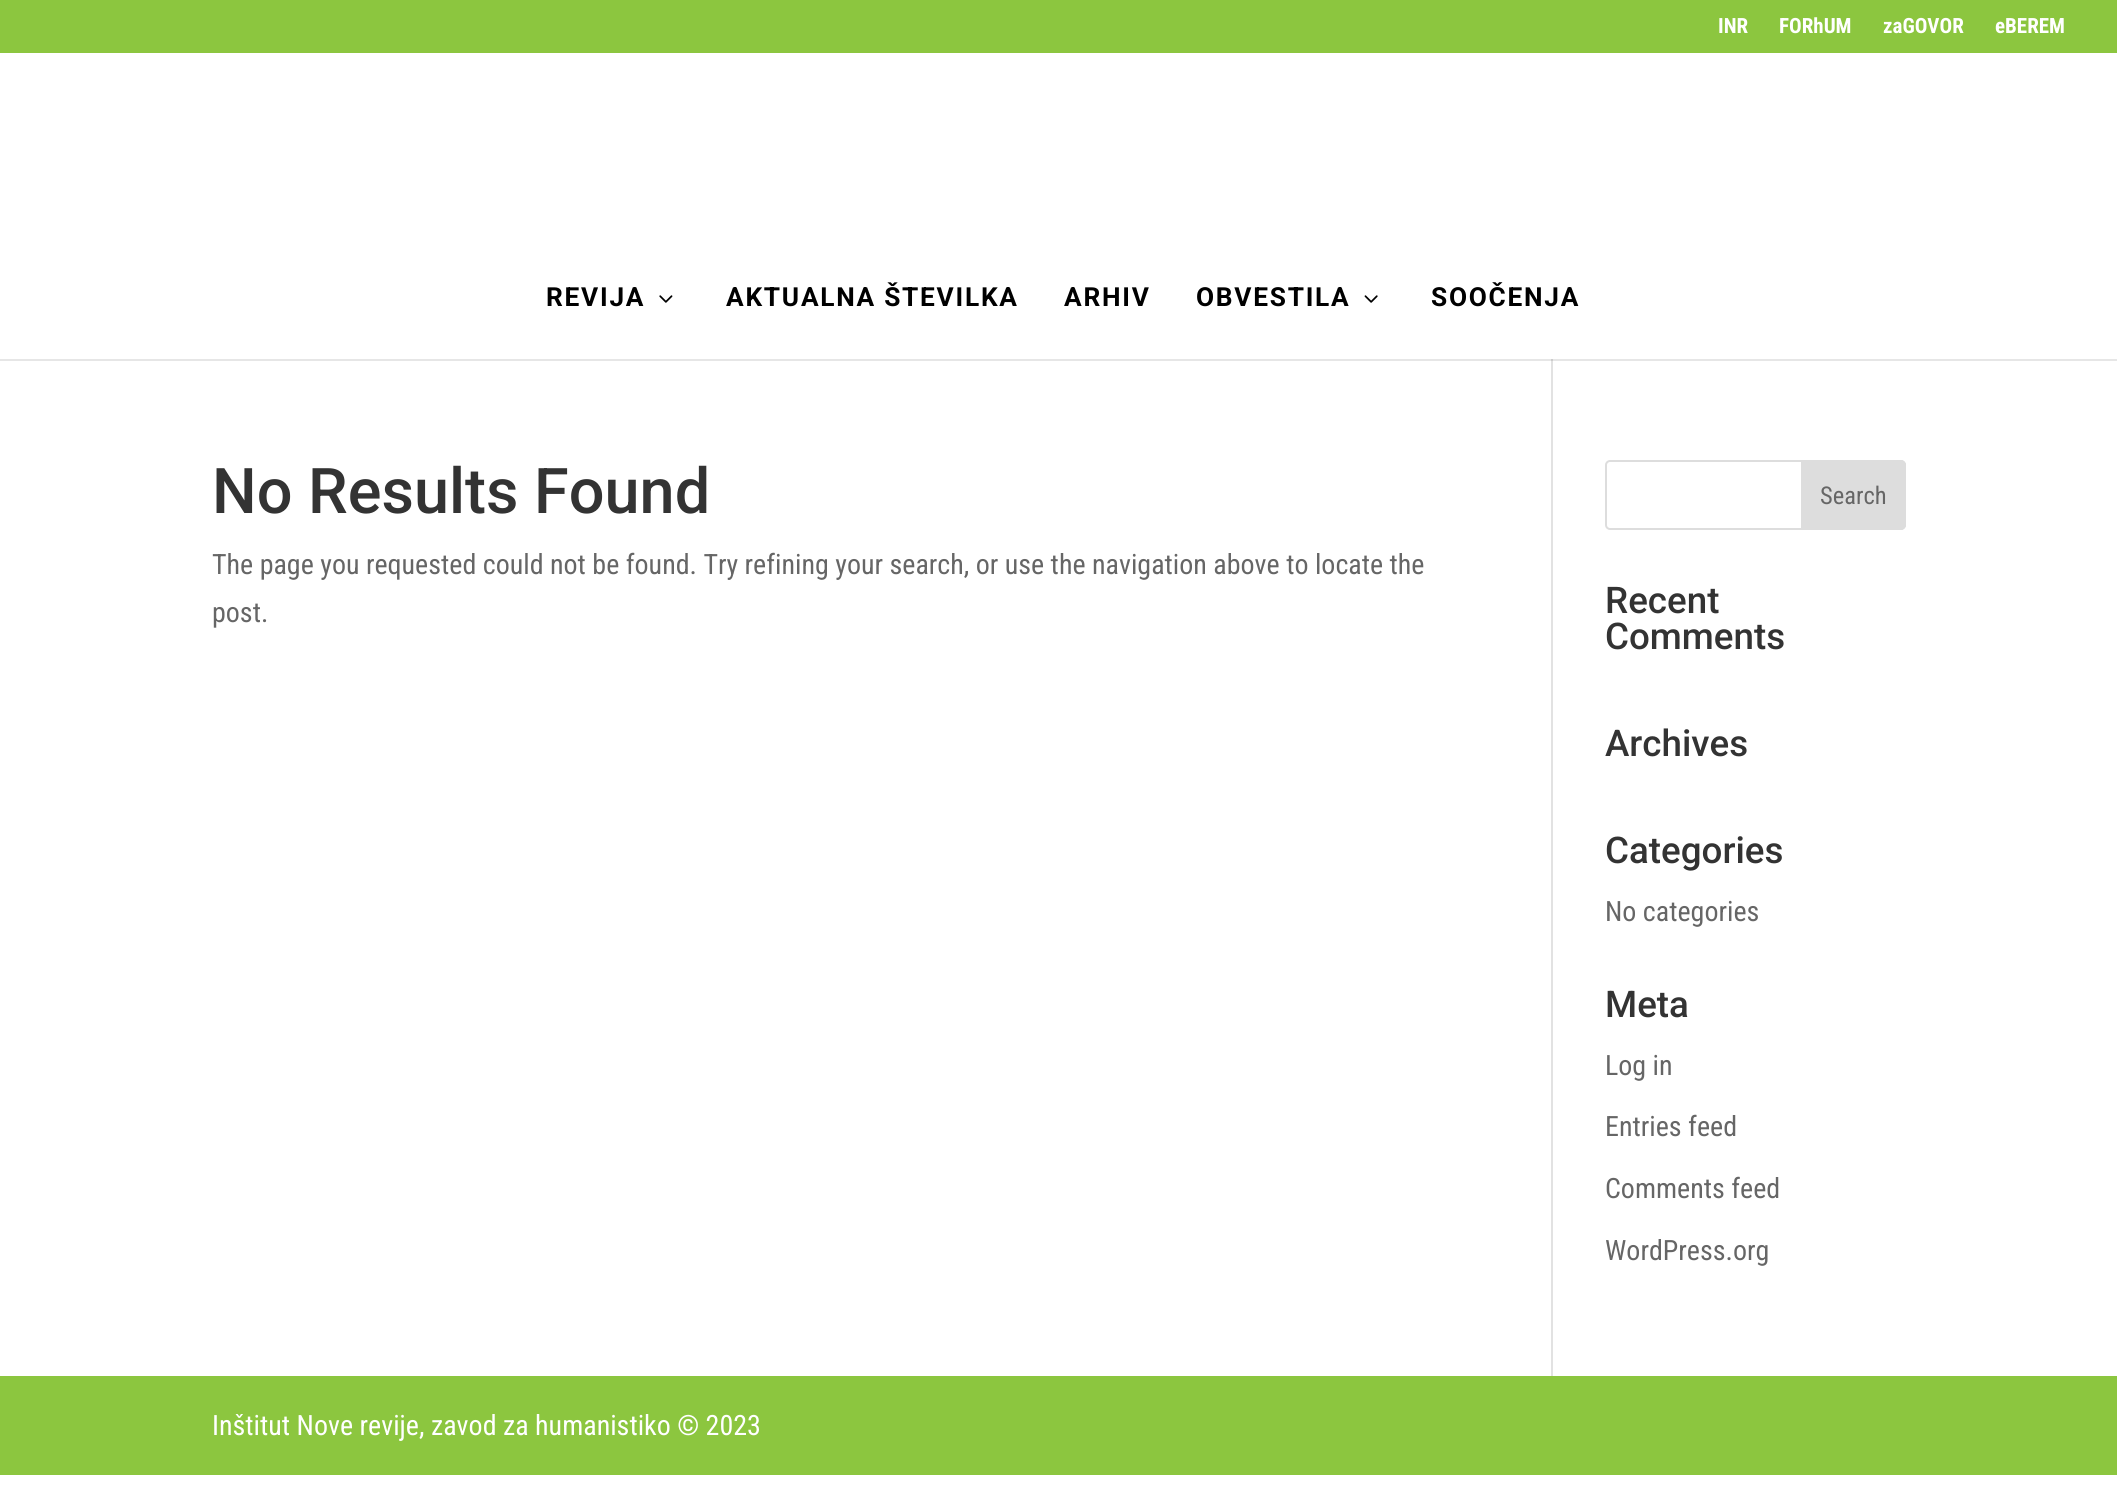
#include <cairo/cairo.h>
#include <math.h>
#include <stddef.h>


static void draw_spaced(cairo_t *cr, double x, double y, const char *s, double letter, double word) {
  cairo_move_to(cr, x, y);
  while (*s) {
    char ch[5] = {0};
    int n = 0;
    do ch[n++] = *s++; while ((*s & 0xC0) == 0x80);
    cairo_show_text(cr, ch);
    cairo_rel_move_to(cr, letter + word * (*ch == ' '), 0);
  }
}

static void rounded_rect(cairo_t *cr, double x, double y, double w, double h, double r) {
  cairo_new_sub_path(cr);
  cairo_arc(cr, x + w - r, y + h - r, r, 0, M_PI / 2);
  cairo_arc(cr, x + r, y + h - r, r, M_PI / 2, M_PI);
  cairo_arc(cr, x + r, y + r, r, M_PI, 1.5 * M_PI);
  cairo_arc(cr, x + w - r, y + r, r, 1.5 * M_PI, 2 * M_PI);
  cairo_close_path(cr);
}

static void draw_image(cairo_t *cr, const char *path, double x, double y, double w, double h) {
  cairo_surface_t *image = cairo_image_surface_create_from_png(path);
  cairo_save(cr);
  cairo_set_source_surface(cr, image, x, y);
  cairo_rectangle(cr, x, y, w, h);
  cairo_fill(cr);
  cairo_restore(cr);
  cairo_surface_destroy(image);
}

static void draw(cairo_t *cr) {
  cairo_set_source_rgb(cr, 1, 1, 1);
  cairo_paint(cr);
  cairo_set_source_rgb(cr, 140 / 255.0, 198 / 255.0, 63 / 255.0);
  cairo_rectangle(cr, 0, 0, 2117, 53);
  cairo_fill(cr);
  cairo_set_source_rgb(cr, 226 / 255.0, 226 / 255.0, 226 / 255.0);
  cairo_rectangle(cr, 1551, 359, 2, 1017);
  cairo_fill(cr);
  cairo_set_source_rgba(cr, 0, 0, 0, 0.1);
  cairo_new_path(cr);
  cairo_move_to(cr, 0, 359);
  cairo_line_to(cr, 0, 361);
  cairo_line_to(cr, 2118, 361);
  cairo_line_to(cr, 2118, 54);
  cairo_line_to(cr, 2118, 359);
  cairo_close_path(cr);
  cairo_fill(cr);
  draw_image(cr, "images/1.png", 659, 295, 14, 8);
  draw_image(cr, "images/2.png", 1364, 295, 14, 8);
  rounded_rect(cr, 1606, 461, 299, 68, 4);
  cairo_set_source_rgb(cr, 221 / 255.0, 221 / 255.0, 221 / 255.0);
  cairo_stroke(cr);
  cairo_new_path(cr);
  cairo_move_to(cr, 1802, 461);
  cairo_line_to(cr, 1901, 461);
  cairo_curve_to(cr, 1903, 461, 1905, 463, 1905, 465);
  cairo_line_to(cr, 1905, 525);
  cairo_curve_to(cr, 1905, 527, 1903, 529, 1901, 529);
  cairo_line_to(cr, 1802, 529);
  cairo_close_path(cr);
  cairo_fill_preserve(cr);
  cairo_stroke(cr);
  cairo_set_source_rgb(cr, 140 / 255.0, 198 / 255.0, 63 / 255.0);
  cairo_rectangle(cr, 0, 1376, 2117, 99);
  cairo_fill(cr);
  cairo_select_font_face(cr, "Roboto Condensed", CAIRO_FONT_SLANT_NORMAL, CAIRO_FONT_WEIGHT_BOLD);
  cairo_set_font_size(cr, 21);
  cairo_set_source_rgb(cr, 1, 1, 1);
  cairo_move_to(cr, 1718, 33);
  cairo_show_text(cr, "INR");
  cairo_move_to(cr, 1779, 33);
  cairo_show_text(cr, "FORhUM");
  cairo_move_to(cr, 1883, 33);
  cairo_show_text(cr, "zaGOVOR");
  cairo_move_to(cr, 1995, 33);
  cairo_show_text(cr, "eBEREM");
  cairo_select_font_face(cr, "Roboto", CAIRO_FONT_SLANT_NORMAL, CAIRO_FONT_WEIGHT_BOLD);
  cairo_set_font_size(cr, 26.25);
  cairo_set_source_rgb(cr, 0, 0, 0);
  draw_spaced(cr, 546, 306, "REVIJA", 1.75, 0);
  draw_spaced(cr, 726, 306, "AKTUALNA ŠTEVILKA", 1.75, 0);
  draw_spaced(cr, 1064, 306, "ARHIV", 1.75, 0);
  draw_spaced(cr, 1196, 306, "OBVESTILA", 1.75, 0);
  draw_spaced(cr, 1431, 306, "SOOČENJA", 1.75, 0);
  cairo_select_font_face(cr, "Roboto Medium", CAIRO_FONT_SLANT_NORMAL, CAIRO_FONT_WEIGHT_NORMAL);
  cairo_set_font_size(cr, 63);
  cairo_set_source_rgb(cr, 51 / 255.0, 51 / 255.0, 51 / 255.0);
  cairo_move_to(cr, 212, 513);
  cairo_show_text(cr, "No Results Found");
  cairo_select_font_face(cr, "Roboto Condensed", CAIRO_FONT_SLANT_NORMAL, CAIRO_FONT_WEIGHT_NORMAL);
  cairo_set_font_size(cr, 28);
  cairo_set_source_rgb(cr, 102 / 255.0, 102 / 255.0, 102 / 255.0);
  cairo_move_to(cr, 212, 574);
  cairo_show_text(cr, "The page you requested could not be found. Try refining your search, or use the navigation above to locate the");
  cairo_move_to(cr, 212, 622);
  cairo_show_text(cr, "post.");
  cairo_set_font_size(cr, 24.5);
  cairo_move_to(cr, 1820, 504);
  cairo_show_text(cr, "Search");
  cairo_select_font_face(cr, "Roboto Medium", CAIRO_FONT_SLANT_NORMAL, CAIRO_FONT_WEIGHT_NORMAL);
  cairo_set_font_size(cr, 36.75);
  cairo_set_source_rgb(cr, 51 / 255.0, 51 / 255.0, 51 / 255.0);
  cairo_move_to(cr, 1605, 613);
  cairo_show_text(cr, "Recent");
  cairo_move_to(cr, 1605, 649);
  cairo_show_text(cr, "Comments");
  cairo_move_to(cr, 1605, 756);
  cairo_show_text(cr, "Archives");
  cairo_move_to(cr, 1605, 863);
  cairo_show_text(cr, "Categories");
  cairo_select_font_face(cr, "Roboto Condensed", CAIRO_FONT_SLANT_NORMAL, CAIRO_FONT_WEIGHT_NORMAL);
  cairo_set_font_size(cr, 28);
  cairo_set_source_rgb(cr, 102 / 255.0, 102 / 255.0, 102 / 255.0);
  cairo_move_to(cr, 1605, 921);
  cairo_show_text(cr, "No categories");
  cairo_select_font_face(cr, "Roboto Medium", CAIRO_FONT_SLANT_NORMAL, CAIRO_FONT_WEIGHT_NORMAL);
  cairo_set_font_size(cr, 36.75);
  cairo_set_source_rgb(cr, 51 / 255.0, 51 / 255.0, 51 / 255.0);
  cairo_move_to(cr, 1605, 1017);
  cairo_show_text(cr, "Meta");
  cairo_select_font_face(cr, "Roboto Condensed", CAIRO_FONT_SLANT_NORMAL, CAIRO_FONT_WEIGHT_NORMAL);
  cairo_set_font_size(cr, 28);
  cairo_set_source_rgb(cr, 102 / 255.0, 102 / 255.0, 102 / 255.0);
  cairo_move_to(cr, 1605, 1075);
  cairo_show_text(cr, "Log in");
  cairo_move_to(cr, 1605, 1136);
  cairo_show_text(cr, "Entries feed");
  cairo_move_to(cr, 1605, 1198);
  cairo_show_text(cr, "Comments feed");
  cairo_move_to(cr, 1605, 1260);
  cairo_show_text(cr, "WordPress.org");
  cairo_set_source_rgb(cr, 1, 1, 1);
  cairo_move_to(cr, 212, 1435);
  cairo_show_text(cr, "Inštitut Nove revije, zavod za humanistiko © 2023");
}

int main(void) {
  cairo_surface_t *surface = cairo_image_surface_create(CAIRO_FORMAT_RGB24, 2117, 1507);
  cairo_t *cr = cairo_create(surface);
  cairo_font_options_t *options = cairo_font_options_create();
  cairo_font_options_set_hint_metrics(options, CAIRO_HINT_METRICS_OFF);
  cairo_font_options_set_hint_style(options, CAIRO_HINT_STYLE_NONE);
  cairo_set_font_options(cr, options);
  cairo_set_miter_limit(cr, 4);
  draw(cr);
  cairo_surface_write_to_png(surface, "out.png");
  cairo_font_options_destroy(options);
  cairo_destroy(cr);
  cairo_surface_destroy(surface);
  return 0;
}
